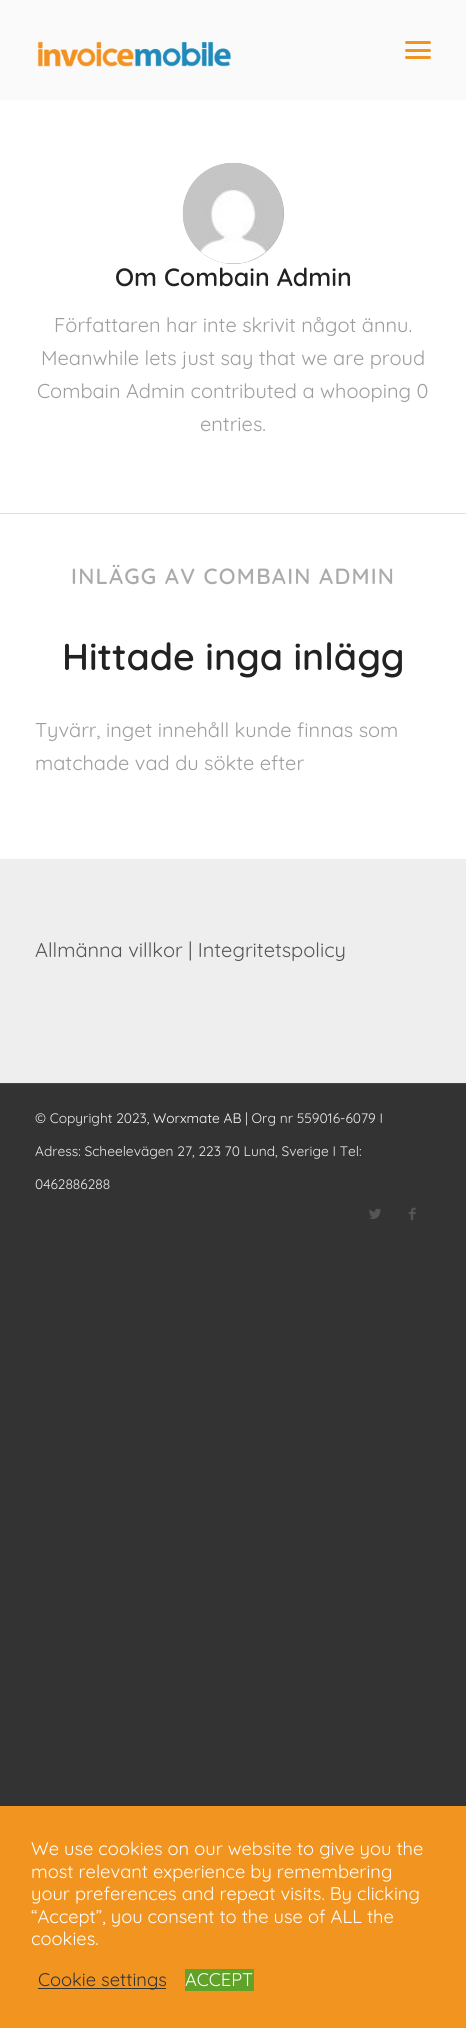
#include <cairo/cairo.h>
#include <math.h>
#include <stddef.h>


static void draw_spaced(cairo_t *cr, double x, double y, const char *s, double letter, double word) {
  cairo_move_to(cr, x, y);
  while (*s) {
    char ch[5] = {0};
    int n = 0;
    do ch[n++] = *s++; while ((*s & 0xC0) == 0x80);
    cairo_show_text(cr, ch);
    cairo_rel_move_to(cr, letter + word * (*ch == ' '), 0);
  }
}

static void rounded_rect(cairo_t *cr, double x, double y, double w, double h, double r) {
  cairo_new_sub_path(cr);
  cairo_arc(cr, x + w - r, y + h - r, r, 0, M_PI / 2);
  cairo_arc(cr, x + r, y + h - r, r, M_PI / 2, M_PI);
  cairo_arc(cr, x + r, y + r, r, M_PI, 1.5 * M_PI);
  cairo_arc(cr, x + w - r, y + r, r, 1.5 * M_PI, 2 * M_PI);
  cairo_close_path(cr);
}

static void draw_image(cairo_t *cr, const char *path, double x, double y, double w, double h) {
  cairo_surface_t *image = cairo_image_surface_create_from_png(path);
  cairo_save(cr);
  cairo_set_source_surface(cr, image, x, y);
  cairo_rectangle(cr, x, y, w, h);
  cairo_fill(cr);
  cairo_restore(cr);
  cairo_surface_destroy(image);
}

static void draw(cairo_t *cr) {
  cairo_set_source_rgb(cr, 51 / 255.0, 51 / 255.0, 51 / 255.0);
  cairo_paint(cr);
  cairo_set_source_rgb(cr, 250 / 255.0, 250 / 255.0, 250 / 255.0);
  cairo_rectangle(cr, 0, 0, 466, 100);
  cairo_fill(cr);
  draw_image(cr, "images/1.png", 37, 41, 194, 26);
  cairo_set_source_rgb(cr, 242 / 255.0, 148 / 255.0, 32 / 255.0);
  rounded_rect(cr, 405, 49, 26, 3, 1.5);
  cairo_fill(cr);
  rounded_rect(cr, 405, 41, 26, 3, 1.5);
  cairo_fill(cr);
  rounded_rect(cr, 405, 56, 26, 3, 1.5);
  cairo_fill(cr);
  cairo_set_source_rgb(cr, 1, 1, 1);
  cairo_rectangle(cr, 0, 100, 466, 759);
  cairo_fill(cr);
  cairo_set_source_rgb(cr, 171 / 255.0, 171 / 255.0, 171 / 255.0);
  cairo_arc(cr, 233.5, 213.5, 50.5, 0, 2 * M_PI);
  cairo_fill(cr);
  draw_image(cr, "images/2.png", 182, 162, 102, 102);
  cairo_set_source_rgb(cr, 225 / 255.0, 225 / 255.0, 225 / 255.0);
  cairo_rectangle(cr, 0, 513, 466, 1);
  cairo_fill(cr);
  cairo_set_source_rgb(cr, 238 / 255.0, 238 / 255.0, 238 / 255.0);
  cairo_rectangle(cr, 0, 859, 466, 224);
  cairo_fill(cr);
  cairo_set_source_rgb(cr, 68 / 255.0, 68 / 255.0, 68 / 255.0);
  cairo_rectangle(cr, 0, 1083, 466, 1);
  cairo_fill(cr);
  draw_image(cr, "images/3.png", 369, 1208, 12, 11);
  draw_image(cr, "images/4.png", 408, 1207, 8, 14);
  cairo_set_source_rgb(cr, 242 / 255.0, 148 / 255.0, 32 / 255.0);
  cairo_rectangle(cr, 0, 1806, 466, 222);
  cairo_fill(cr);
  cairo_set_source_rgb(cr, 51 / 255.0, 51 / 255.0, 51 / 255.0);
  cairo_rectangle(cr, 38, 1988, 128, 1);
  cairo_fill(cr);
  cairo_set_source_rgb(cr, 97 / 255.0, 162 / 255.0, 41 / 255.0);
  cairo_rectangle(cr, 185, 1969, 69, 22);
  cairo_fill(cr);
  cairo_select_font_face(cr, "Quicksand SemiBold", CAIRO_FONT_SLANT_NORMAL, CAIRO_FONT_WEIGHT_NORMAL);
  cairo_set_font_size(cr, 25);
  cairo_set_source_rgb(cr, 34 / 255.0, 34 / 255.0, 34 / 255.0);
  cairo_move_to(cr, 115, 286);
  cairo_show_text(cr, "Om Combain Admin");
  cairo_select_font_face(cr, "Quicksand", CAIRO_FONT_SLANT_NORMAL, CAIRO_FONT_WEIGHT_NORMAL);
  cairo_set_font_size(cr, 20);
  cairo_set_source_rgb(cr, 157 / 255.0, 157 / 255.0, 157 / 255.0);
  cairo_move_to(cr, 54, 332);
  cairo_show_text(cr, "Författaren har inte skrivit något ännu.");
  cairo_move_to(cr, 41, 365);
  cairo_show_text(cr, "Meanwhile lets just say that we are proud");
  cairo_move_to(cr, 37, 398);
  cairo_show_text(cr, "Combain Admin contributed a whooping 0");
  cairo_move_to(cr, 200, 431);
  cairo_show_text(cr, "entries.");
  cairo_select_font_face(cr, "Quicksand SemiBold", CAIRO_FONT_SLANT_NORMAL, CAIRO_FONT_WEIGHT_NORMAL);
  cairo_set_font_size(cr, 22);
  cairo_set_source_rgb(cr, 171 / 255.0, 171 / 255.0, 171 / 255.0);
  draw_spaced(cr, 71, 584, "INLÄGG AV COMBAIN ADMIN", 1.25, 0);
  cairo_set_font_size(cr, 37.5);
  cairo_set_source_rgb(cr, 34 / 255.0, 34 / 255.0, 34 / 255.0);
  cairo_move_to(cr, 62, 670);
  cairo_show_text(cr, "Hittade inga inlägg");
  cairo_select_font_face(cr, "Quicksand", CAIRO_FONT_SLANT_NORMAL, CAIRO_FONT_WEIGHT_NORMAL);
  cairo_set_font_size(cr, 20);
  cairo_set_source_rgb(cr, 157 / 255.0, 157 / 255.0, 157 / 255.0);
  cairo_move_to(cr, 35, 737);
  cairo_show_text(cr, "Tyvärr, inget innehåll kunde finnas som");
  cairo_move_to(cr, 35, 770);
  cairo_show_text(cr, "matchade vad du sökte efter");
  cairo_set_source_rgb(cr, 85 / 255.0, 85 / 255.0, 85 / 255.0);
  cairo_move_to(cr, 35, 957);
  cairo_show_text(cr, "Allmänna villkor | Integritetspolicy");
  cairo_set_font_size(cr, 13.75);
  cairo_set_source_rgb(cr, 238 / 255.0, 238 / 255.0, 238 / 255.0);
  cairo_move_to(cr, 35, 1123);
  cairo_show_text(cr, "© Copyright 2023,");
  cairo_set_source_rgb(cr, 1, 1, 1);
  cairo_move_to(cr, 153, 1123);
  cairo_show_text(cr, "Worxmate AB");
  cairo_set_source_rgb(cr, 238 / 255.0, 238 / 255.0, 238 / 255.0);
  cairo_move_to(cr, 245, 1123);
  cairo_show_text(cr, "| Org nr 559016-6079 I");
  cairo_move_to(cr, 35, 1156);
  cairo_show_text(cr, "Adress: Scheelevägen 27, 223 70 Lund, Sverige I Tel:");
  cairo_move_to(cr, 35, 1189);
  cairo_show_text(cr, "0462886288");
  cairo_set_font_size(cr, 18.3);
  cairo_set_source_rgb(cr, 1, 1, 1);
  cairo_move_to(cr, 31, 1855);
  cairo_show_text(cr, "We use cookies on our website to give you the");
  cairo_move_to(cr, 31, 1878);
  cairo_show_text(cr, "most relevant experience by remembering");
  cairo_move_to(cr, 31, 1900);
  cairo_show_text(cr, "your preferences and repeat visits. By clicking");
  cairo_move_to(cr, 31, 1923);
  cairo_show_text(cr, "“Accept”, you consent to the use of ALL the");
  cairo_move_to(cr, 31, 1945);
  cairo_show_text(cr, "cookies.");
  cairo_set_source_rgb(cr, 51 / 255.0, 51 / 255.0, 51 / 255.0);
  cairo_move_to(cr, 38, 1986);
  cairo_show_text(cr, "Cookie settings");
  cairo_set_source_rgb(cr, 1, 1, 1);
  cairo_move_to(cr, 185, 1986);
  cairo_show_text(cr, "ACCEPT");
}

int main(void) {
  cairo_surface_t *surface = cairo_image_surface_create(CAIRO_FORMAT_RGB24, 466, 2028);
  cairo_t *cr = cairo_create(surface);
  cairo_font_options_t *options = cairo_font_options_create();
  cairo_font_options_set_hint_metrics(options, CAIRO_HINT_METRICS_OFF);
  cairo_font_options_set_hint_style(options, CAIRO_HINT_STYLE_NONE);
  cairo_set_font_options(cr, options);
  cairo_set_miter_limit(cr, 4);
  draw(cr);
  cairo_surface_write_to_png(surface, "out.png");
  cairo_font_options_destroy(options);
  cairo_destroy(cr);
  cairo_surface_destroy(surface);
  return 0;
}
